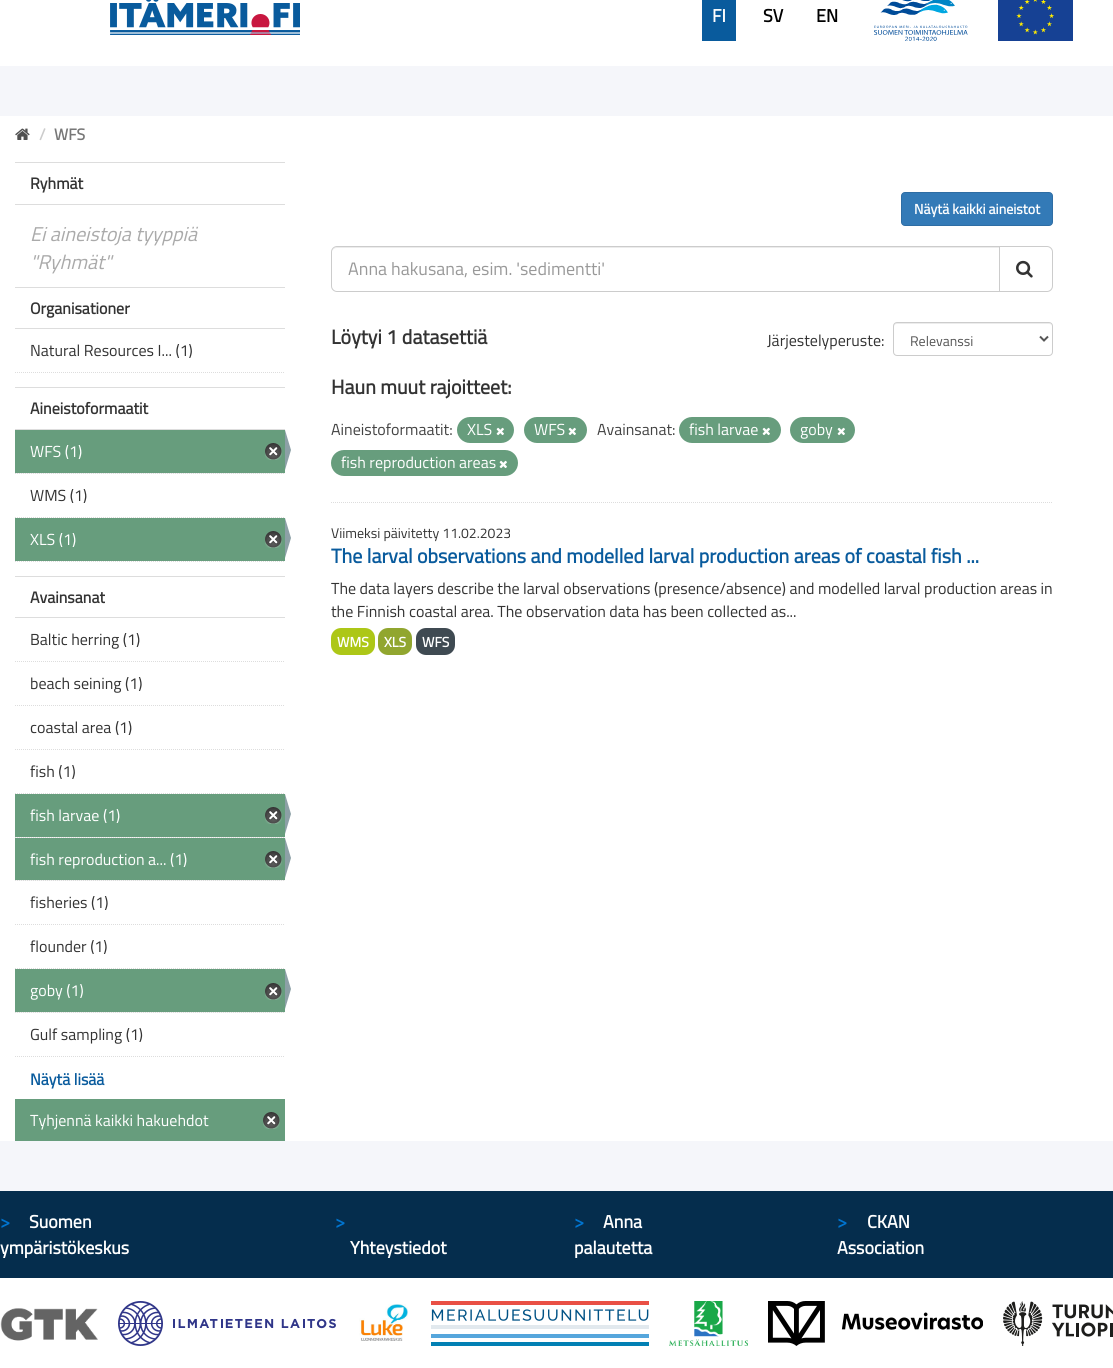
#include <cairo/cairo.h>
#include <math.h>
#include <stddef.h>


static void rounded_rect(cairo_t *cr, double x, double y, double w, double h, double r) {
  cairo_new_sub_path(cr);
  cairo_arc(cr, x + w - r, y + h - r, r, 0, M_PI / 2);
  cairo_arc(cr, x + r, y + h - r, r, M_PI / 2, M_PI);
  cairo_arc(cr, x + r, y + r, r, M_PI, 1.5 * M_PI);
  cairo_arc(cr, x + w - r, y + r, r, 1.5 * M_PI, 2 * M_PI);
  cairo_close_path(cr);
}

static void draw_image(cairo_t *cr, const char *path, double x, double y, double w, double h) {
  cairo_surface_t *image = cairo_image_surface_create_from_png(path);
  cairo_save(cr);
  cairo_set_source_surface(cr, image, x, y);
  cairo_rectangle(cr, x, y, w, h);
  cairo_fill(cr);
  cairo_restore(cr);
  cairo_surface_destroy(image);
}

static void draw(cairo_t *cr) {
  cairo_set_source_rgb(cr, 1, 1, 1);
  cairo_paint(cr);
  draw_image(cr, "images/1.png", 110, 0, 190, 35);
  cairo_set_source_rgb(cr, 9 / 255.0, 91 / 255.0, 157 / 255.0);
  cairo_rectangle(cr, 702, 0, 34, 41);
  cairo_fill(cr);
  draw_image(cr, "images/2.png", 874, 0, 94, 41);
  draw_image(cr, "images/3.png", 998, 0, 75, 41);
  cairo_set_source_rgb(cr, 245 / 255.0, 246 / 255.0, 250 / 255.0);
  cairo_rectangle(cr, 0, 66, 1113, 1125);
  cairo_fill(cr);
  cairo_set_source_rgb(cr, 1, 1, 1);
  cairo_rectangle(cr, 0, 116, 1113, 1025);
  cairo_fill(cr);
  draw_image(cr, "images/4.png", 15, 128, 15, 12);
  cairo_set_source_rgb(cr, 221 / 255.0, 221 / 255.0, 221 / 255.0);
  cairo_rectangle(cr, 15, 162, 270, 1);
  cairo_fill(cr);
  cairo_rectangle(cr, 15, 204, 270, 1);
  cairo_fill(cr);
  cairo_rectangle(cr, 15, 287, 270, 1);
  cairo_fill(cr);
  cairo_rectangle(cr, 15, 328, 270, 1);
  cairo_fill(cr);
  cairo_new_path(cr);
  cairo_move_to(cr, 15, 372.5);
  cairo_line_to(cr, 285, 372.5);
  cairo_set_line_width(cr, 1);
  cairo_set_dash(cr, (double[]){1, 1}, 2, 0);
  cairo_stroke(cr);
  cairo_rectangle(cr, 15, 387, 270, 1);
  cairo_fill(cr);
  cairo_rectangle(cr, 15, 429, 270, 1);
  cairo_fill(cr);
  cairo_set_source_rgb(cr, 246 / 255.0, 246 / 255.0, 246 / 255.0);
  cairo_rectangle(cr, 16, 473, 269, 1);
  cairo_fill(cr);
  cairo_new_path(cr);
  cairo_move_to(cr, 15, 473.5);
  cairo_line_to(cr, 285, 473.5);
  cairo_set_source_rgb(cr, 221 / 255.0, 221 / 255.0, 221 / 255.0);
  cairo_stroke(cr);
  cairo_set_source_rgb(cr, 103 / 255.0, 157 / 255.0, 125 / 255.0);
  cairo_rectangle(cr, 15, 430, 270, 43);
  cairo_fill(cr);
  draw_image(cr, "images/5.png", 265, 443, 17, 17);
  cairo_set_source_rgb(cr, 140 / 255.0, 160 / 255.0, 166 / 255.0);
  cairo_new_path(cr);
  cairo_move_to(cr, 285, 470);
  cairo_line_to(cr, 285, 430);
  cairo_line_to(cr, 291, 450);
  cairo_close_path(cr);
  cairo_fill(cr);
  cairo_new_path(cr);
  cairo_move_to(cr, 15, 517.5);
  cairo_line_to(cr, 285, 517.5);
  cairo_set_source_rgb(cr, 221 / 255.0, 221 / 255.0, 221 / 255.0);
  cairo_stroke(cr);
  cairo_set_source_rgb(cr, 103 / 255.0, 157 / 255.0, 125 / 255.0);
  cairo_rectangle(cr, 15, 518, 270, 43);
  cairo_fill(cr);
  draw_image(cr, "images/5.png", 265, 531, 17, 17);
  cairo_set_source_rgb(cr, 140 / 255.0, 160 / 255.0, 166 / 255.0);
  cairo_new_path(cr);
  cairo_move_to(cr, 285, 558);
  cairo_line_to(cr, 285, 518);
  cairo_line_to(cr, 291, 538);
  cairo_close_path(cr);
  cairo_fill(cr);
  cairo_new_path(cr);
  cairo_move_to(cr, 15, 561.5);
  cairo_line_to(cr, 285, 561.5);
  cairo_set_source_rgb(cr, 221 / 255.0, 221 / 255.0, 221 / 255.0);
  cairo_stroke(cr);
  cairo_rectangle(cr, 15, 576, 270, 1);
  cairo_fill(cr);
  cairo_rectangle(cr, 15, 617, 270, 1);
  cairo_fill(cr);
  cairo_new_path(cr);
  cairo_move_to(cr, 15, 661.5);
  cairo_line_to(cr, 285, 661.5);
  cairo_stroke(cr);
  cairo_new_path(cr);
  cairo_move_to(cr, 15, 705.5);
  cairo_line_to(cr, 285, 705.5);
  cairo_stroke(cr);
  cairo_new_path(cr);
  cairo_move_to(cr, 15, 749.5);
  cairo_line_to(cr, 285, 749.5);
  cairo_stroke(cr);
  cairo_new_path(cr);
  cairo_move_to(cr, 15, 793.5);
  cairo_line_to(cr, 285, 793.5);
  cairo_stroke(cr);
  cairo_set_source_rgb(cr, 246 / 255.0, 246 / 255.0, 246 / 255.0);
  cairo_rectangle(cr, 16, 837, 269, 1);
  cairo_fill(cr);
  cairo_new_path(cr);
  cairo_move_to(cr, 15, 837.5);
  cairo_line_to(cr, 285, 837.5);
  cairo_set_source_rgb(cr, 221 / 255.0, 221 / 255.0, 221 / 255.0);
  cairo_stroke(cr);
  cairo_set_source_rgb(cr, 103 / 255.0, 157 / 255.0, 125 / 255.0);
  cairo_rectangle(cr, 15, 794, 270, 43);
  cairo_fill(cr);
  draw_image(cr, "images/5.png", 265, 807, 17, 17);
  cairo_set_source_rgb(cr, 140 / 255.0, 160 / 255.0, 166 / 255.0);
  cairo_new_path(cr);
  cairo_move_to(cr, 285, 834);
  cairo_line_to(cr, 285, 794);
  cairo_line_to(cr, 291, 814);
  cairo_close_path(cr);
  cairo_fill(cr);
  cairo_set_source_rgb(cr, 246 / 255.0, 246 / 255.0, 246 / 255.0);
  cairo_rectangle(cr, 16, 880, 269, 1);
  cairo_fill(cr);
  cairo_new_path(cr);
  cairo_move_to(cr, 15, 880.5);
  cairo_line_to(cr, 285, 880.5);
  cairo_set_source_rgb(cr, 221 / 255.0, 221 / 255.0, 221 / 255.0);
  cairo_stroke(cr);
  cairo_set_source_rgb(cr, 103 / 255.0, 157 / 255.0, 125 / 255.0);
  cairo_rectangle(cr, 15, 838, 270, 42);
  cairo_fill(cr);
  draw_image(cr, "images/5.png", 265, 851, 17, 17);
  cairo_set_source_rgb(cr, 140 / 255.0, 160 / 255.0, 166 / 255.0);
  cairo_new_path(cr);
  cairo_move_to(cr, 285, 878);
  cairo_line_to(cr, 285, 838);
  cairo_line_to(cr, 291, 858);
  cairo_close_path(cr);
  cairo_fill(cr);
  cairo_new_path(cr);
  cairo_move_to(cr, 15, 924.5);
  cairo_line_to(cr, 285, 924.5);
  cairo_set_source_rgb(cr, 221 / 255.0, 221 / 255.0, 221 / 255.0);
  cairo_stroke(cr);
  cairo_new_path(cr);
  cairo_move_to(cr, 15, 968.5);
  cairo_line_to(cr, 285, 968.5);
  cairo_stroke(cr);
  cairo_set_source_rgb(cr, 246 / 255.0, 246 / 255.0, 246 / 255.0);
  cairo_rectangle(cr, 16, 1012, 269, 1);
  cairo_fill(cr);
  cairo_new_path(cr);
  cairo_move_to(cr, 15, 1012.5);
  cairo_line_to(cr, 285, 1012.5);
  cairo_set_source_rgb(cr, 221 / 255.0, 221 / 255.0, 221 / 255.0);
  cairo_stroke(cr);
  cairo_set_source_rgb(cr, 103 / 255.0, 157 / 255.0, 125 / 255.0);
  cairo_rectangle(cr, 15, 969, 270, 43);
  cairo_fill(cr);
  draw_image(cr, "images/5.png", 265, 983, 17, 17);
  cairo_set_source_rgb(cr, 140 / 255.0, 160 / 255.0, 166 / 255.0);
  cairo_new_path(cr);
  cairo_move_to(cr, 285, 1009);
  cairo_line_to(cr, 285, 969);
  cairo_line_to(cr, 291, 989);
  cairo_close_path(cr);
  cairo_fill(cr);
  cairo_new_path(cr);
  cairo_move_to(cr, 15, 1056.5);
  cairo_line_to(cr, 285, 1056.5);
  cairo_set_source_rgb(cr, 221 / 255.0, 221 / 255.0, 221 / 255.0);
  cairo_stroke(cr);
  cairo_set_source_rgb(cr, 103 / 255.0, 157 / 255.0, 125 / 255.0);
  cairo_rectangle(cr, 15, 1099, 270, 42);
  cairo_fill(cr);
  draw_image(cr, "images/5.png", 263, 1112, 17, 17);
  cairo_set_source_rgb(cr, 51 / 255.0, 122 / 255.0, 183 / 255.0);
  rounded_rect(cr, 901.5, 192.5, 151, 33, 3.5);
  cairo_fill_preserve(cr);
  cairo_set_source_rgb(cr, 46 / 255.0, 109 / 255.0, 164 / 255.0);
  cairo_set_dash(cr, NULL, 0, 0);
  cairo_stroke(cr);
  cairo_new_path(cr);
  cairo_move_to(cr, 331, 502.5);
  cairo_line_to(cr, 1053, 502.5);
  cairo_set_source_rgb(cr, 221 / 255.0, 221 / 255.0, 221 / 255.0);
  cairo_set_dash(cr, (double[]){1, 1}, 2, 0);
  cairo_stroke(cr);
  cairo_set_source_rgb(cr, 236 / 255.0, 236 / 255.0, 236 / 255.0);
  cairo_new_path(cr);
  cairo_move_to(cr, 337, 248);
  cairo_line_to(cr, 999, 248);
  cairo_line_to(cr, 999, 247);
  cairo_line_to(cr, 337, 247);
  cairo_curve_to(cr, 334, 247, 332, 250, 332, 253);
  cairo_curve_to(cr, 332, 250, 334, 248, 337, 248);
  cairo_close_path(cr);
  cairo_fill(cr);
  cairo_new_path(cr);
  cairo_move_to(cr, 337, 246.5);
  cairo_line_to(cr, 999.5, 246.5);
  cairo_line_to(cr, 999.5, 291.5);
  cairo_line_to(cr, 337, 291.5);
  cairo_curve_to(cr, 334, 291.5, 331.5, 289, 331.5, 286);
  cairo_line_to(cr, 331.5, 252);
  cairo_curve_to(cr, 331.5, 249, 334, 246.5, 337, 246.5);
  cairo_close_path(cr);
  cairo_set_source_rgb(cr, 204 / 255.0, 204 / 255.0, 204 / 255.0);
  cairo_set_dash(cr, NULL, 0, 0);
  cairo_stroke(cr);
  cairo_set_source_rgb(cr, 1, 1, 1);
  cairo_new_path(cr);
  cairo_move_to(cr, 999.5, 246.5);
  cairo_line_to(cr, 1047, 246.5);
  cairo_curve_to(cr, 1050, 246.5, 1052.5, 249, 1052.5, 252);
  cairo_line_to(cr, 1052.5, 286);
  cairo_curve_to(cr, 1052.5, 289, 1050, 291.5, 1047, 291.5);
  cairo_line_to(cr, 999.5, 291.5);
  cairo_close_path(cr);
  cairo_fill_preserve(cr);
  cairo_set_source_rgb(cr, 204 / 255.0, 204 / 255.0, 204 / 255.0);
  cairo_stroke(cr);
  draw_image(cr, "images/6.png", 1016, 260, 17, 18);
  cairo_set_source_rgb(cr, 236 / 255.0, 236 / 255.0, 236 / 255.0);
  cairo_new_path(cr);
  cairo_move_to(cr, 897, 324);
  cairo_line_to(cr, 1049, 324);
  cairo_curve_to(cr, 1051, 324, 1052, 325, 1052, 327);
  cairo_curve_to(cr, 1052, 325, 1051, 323, 1049, 323);
  cairo_line_to(cr, 896, 323);
  cairo_curve_to(cr, 894, 323, 894, 325, 894, 327);
  cairo_curve_to(cr, 894, 325, 895, 324, 897, 324);
  cairo_close_path(cr);
  cairo_fill(cr);
  rounded_rect(cr, 893.5, 322.5, 159, 33, 3.5);
  cairo_set_source_rgb(cr, 204 / 255.0, 204 / 255.0, 204 / 255.0);
  cairo_stroke(cr);
  cairo_new_path(cr);
  cairo_move_to(cr, 1040, 336.5);
  cairo_line_to(cr, 1044, 340.5);
  cairo_line_to(cr, 1048, 336.5);
  cairo_set_source_rgb(cr, 85 / 255.0, 85 / 255.0, 85 / 255.0);
  cairo_set_line_width(cr, 2);
  cairo_stroke(cr);
  cairo_set_source_rgb(cr, 103 / 255.0, 157 / 255.0, 125 / 255.0);
  rounded_rect(cr, 457, 417, 57, 26, 13);
  cairo_fill(cr);
  draw_image(cr, "images/7.png", 496, 427, 8, 9);
  rounded_rect(cr, 524, 417, 63, 26, 13);
  cairo_fill(cr);
  draw_image(cr, "images/7.png", 568, 427, 8, 9);
  rounded_rect(cr, 679, 417, 102, 26, 13);
  cairo_fill(cr);
  draw_image(cr, "images/7.png", 762, 427, 8, 9);
  rounded_rect(cr, 790, 417, 65, 26, 13);
  cairo_fill(cr);
  draw_image(cr, "images/7.png", 837, 427, 8, 9);
  rounded_rect(cr, 331, 450, 187, 26, 13);
  cairo_fill(cr);
  draw_image(cr, "images/7.png", 499, 460, 8, 9);
  cairo_set_source_rgb(cr, 173 / 255.0, 199 / 255.0, 23 / 255.0);
  rounded_rect(cr, 331, 628, 44, 27, 10);
  cairo_fill(cr);
  cairo_set_source_rgb(cr, 145 / 255.0, 166 / 255.0, 47 / 255.0);
  rounded_rect(cr, 378, 628, 34, 27, 10);
  cairo_fill(cr);
  cairo_set_source_rgb(cr, 63 / 255.0, 74 / 255.0, 82 / 255.0);
  rounded_rect(cr, 416, 628, 39, 27, 10);
  cairo_fill(cr);
  cairo_set_source_rgb(cr, 5 / 255.0, 45 / 255.0, 77 / 255.0);
  cairo_rectangle(cr, 0, 1191, 1113, 87);
  cairo_fill(cr);
  draw_image(cr, "images/8.png", 0, 1308, 98, 33);
  draw_image(cr, "images/9.png", 118, 1301, 218, 45);
  draw_image(cr, "images/10.png", 359, 1304, 49, 37);
  draw_image(cr, "images/11.png", 431, 1301, 218, 45);
  draw_image(cr, "images/12.png", 669, 1301, 79, 45);
  draw_image(cr, "images/13.png", 768, 1301, 215, 45);
  draw_image(cr, "images/14.png", 1003, 1301, 110, 45);
  cairo_select_font_face(cr, "Titillium Web", CAIRO_FONT_SLANT_NORMAL, CAIRO_FONT_WEIGHT_BOLD);
  cairo_set_font_size(cr, 18);
  cairo_set_source_rgb(cr, 1, 1, 1);
  cairo_move_to(cr, 712, 22);
  cairo_show_text(cr, "FI");
  cairo_set_source_rgb(cr, 0, 0, 0);
  cairo_move_to(cr, 763, 22);
  cairo_show_text(cr, "SV");
  cairo_move_to(cr, 816, 22);
  cairo_show_text(cr, "EN");
  cairo_set_font_size(cr, 16);
  cairo_set_source_rgb(cr, 204 / 255.0, 204 / 255.0, 204 / 255.0);
  cairo_move_to(cr, 39, 140);
  cairo_show_text(cr, "/");
  cairo_set_source_rgb(cr, 119 / 255.0, 119 / 255.0, 119 / 255.0);
  cairo_move_to(cr, 54, 140);
  cairo_show_text(cr, "WFS");
  cairo_set_source_rgb(cr, 51 / 255.0, 51 / 255.0, 51 / 255.0);
  cairo_move_to(cr, 30, 189);
  cairo_show_text(cr, "Ryhmät");
  cairo_select_font_face(cr, "Titillium Web", CAIRO_FONT_SLANT_ITALIC, CAIRO_FONT_WEIGHT_NORMAL);
  cairo_set_font_size(cr, 20);
  cairo_set_source_rgb(cr, 170 / 255.0, 170 / 255.0, 170 / 255.0);
  cairo_move_to(cr, 30, 241);
  cairo_show_text(cr, "Ei aineistoja tyyppiä");
  cairo_move_to(cr, 30, 269);
  cairo_show_text(cr, "\"Ryhmät\"");
  cairo_select_font_face(cr, "Titillium Web", CAIRO_FONT_SLANT_NORMAL, CAIRO_FONT_WEIGHT_BOLD);
  cairo_set_font_size(cr, 16);
  cairo_set_source_rgb(cr, 51 / 255.0, 51 / 255.0, 51 / 255.0);
  cairo_move_to(cr, 30, 314);
  cairo_show_text(cr, "Organisationer");
  cairo_select_font_face(cr, "Titillium Web", CAIRO_FONT_SLANT_NORMAL, CAIRO_FONT_WEIGHT_NORMAL);
  cairo_move_to(cr, 30, 356);
  cairo_show_text(cr, "Natural Resources I... (1)");
  cairo_select_font_face(cr, "Titillium Web", CAIRO_FONT_SLANT_NORMAL, CAIRO_FONT_WEIGHT_BOLD);
  cairo_move_to(cr, 30, 414);
  cairo_show_text(cr, "Aineistoformaatit");
  cairo_select_font_face(cr, "Titillium Web", CAIRO_FONT_SLANT_NORMAL, CAIRO_FONT_WEIGHT_NORMAL);
  cairo_set_source_rgb(cr, 1, 1, 1);
  cairo_move_to(cr, 30, 457);
  cairo_show_text(cr, "WFS (1)");
  cairo_set_source_rgb(cr, 51 / 255.0, 51 / 255.0, 51 / 255.0);
  cairo_move_to(cr, 30, 501);
  cairo_show_text(cr, "WMS (1)");
  cairo_set_source_rgb(cr, 1, 1, 1);
  cairo_move_to(cr, 30, 545);
  cairo_show_text(cr, "XLS (1)");
  cairo_select_font_face(cr, "Titillium Web", CAIRO_FONT_SLANT_NORMAL, CAIRO_FONT_WEIGHT_BOLD);
  cairo_set_source_rgb(cr, 51 / 255.0, 51 / 255.0, 51 / 255.0);
  cairo_move_to(cr, 30, 603);
  cairo_show_text(cr, "Avainsanat");
  cairo_select_font_face(cr, "Titillium Web", CAIRO_FONT_SLANT_NORMAL, CAIRO_FONT_WEIGHT_NORMAL);
  cairo_move_to(cr, 30, 645);
  cairo_show_text(cr, "Baltic herring (1)");
  cairo_move_to(cr, 30, 689);
  cairo_show_text(cr, "beach seining (1)");
  cairo_move_to(cr, 30, 733);
  cairo_show_text(cr, "coastal area (1)");
  cairo_move_to(cr, 30, 777);
  cairo_show_text(cr, "fish (1)");
  cairo_set_source_rgb(cr, 1, 1, 1);
  cairo_move_to(cr, 30, 821);
  cairo_show_text(cr, "fish larvae (1)");
  cairo_move_to(cr, 30, 865);
  cairo_show_text(cr, "fish reproduction a... (1)");
  cairo_set_source_rgb(cr, 51 / 255.0, 51 / 255.0, 51 / 255.0);
  cairo_move_to(cr, 30, 908);
  cairo_show_text(cr, "fisheries (1)");
  cairo_move_to(cr, 30, 952);
  cairo_show_text(cr, "flounder (1)");
  cairo_set_source_rgb(cr, 1, 1, 1);
  cairo_move_to(cr, 30, 996);
  cairo_show_text(cr, "goby (1)");
  cairo_set_source_rgb(cr, 51 / 255.0, 51 / 255.0, 51 / 255.0);
  cairo_move_to(cr, 30, 1040);
  cairo_show_text(cr, "Gulf sampling (1)");
  cairo_select_font_face(cr, "Titillium Web", CAIRO_FONT_SLANT_NORMAL, CAIRO_FONT_WEIGHT_BOLD);
  cairo_set_source_rgb(cr, 9 / 255.0, 91 / 255.0, 157 / 255.0);
  cairo_move_to(cr, 30, 1085);
  cairo_show_text(cr, "Näytä lisää");
  cairo_select_font_face(cr, "Titillium Web", CAIRO_FONT_SLANT_NORMAL, CAIRO_FONT_WEIGHT_NORMAL);
  cairo_set_source_rgb(cr, 1, 1, 1);
  cairo_move_to(cr, 30, 1126);
  cairo_show_text(cr, "Tyhjennä kaikki hakuehdot");
  cairo_select_font_face(cr, "Titillium Web", CAIRO_FONT_SLANT_NORMAL, CAIRO_FONT_WEIGHT_BOLD);
  cairo_set_font_size(cr, 14);
  cairo_move_to(cr, 914, 214);
  cairo_show_text(cr, "Näytä kaikki aineistot");
  cairo_select_font_face(cr, "Titillium Web", CAIRO_FONT_SLANT_NORMAL, CAIRO_FONT_WEIGHT_NORMAL);
  cairo_set_font_size(cr, 18);
  cairo_set_source_rgb(cr, 153 / 255.0, 153 / 255.0, 153 / 255.0);
  cairo_move_to(cr, 348, 275);
  cairo_show_text(cr, "Anna hakusana, esim. 'sedimentti'");
  cairo_select_font_face(cr, "Titillium Web", CAIRO_FONT_SLANT_NORMAL, CAIRO_FONT_WEIGHT_BOLD);
  cairo_set_font_size(cr, 20);
  cairo_set_source_rgb(cr, 51 / 255.0, 51 / 255.0, 51 / 255.0);
  cairo_move_to(cr, 331, 344);
  cairo_show_text(cr, "Löytyi 1 datasettiä");
  cairo_select_font_face(cr, "Titillium Web", CAIRO_FONT_SLANT_NORMAL, CAIRO_FONT_WEIGHT_NORMAL);
  cairo_set_font_size(cr, 16);
  cairo_move_to(cr, 767, 346);
  cairo_show_text(cr, "Järjestelyperuste:");
  cairo_set_font_size(cr, 14);
  cairo_set_source_rgb(cr, 85 / 255.0, 85 / 255.0, 85 / 255.0);
  cairo_move_to(cr, 910, 346);
  cairo_show_text(cr, "Relevanssi");
  cairo_select_font_face(cr, "Titillium Web", CAIRO_FONT_SLANT_NORMAL, CAIRO_FONT_WEIGHT_BOLD);
  cairo_set_font_size(cr, 20);
  cairo_set_source_rgb(cr, 51 / 255.0, 51 / 255.0, 51 / 255.0);
  cairo_move_to(cr, 331, 394);
  cairo_show_text(cr, "Haun muut rajoitteet:");
  cairo_select_font_face(cr, "Titillium Web", CAIRO_FONT_SLANT_NORMAL, CAIRO_FONT_WEIGHT_NORMAL);
  cairo_set_font_size(cr, 16);
  cairo_set_source_rgb(cr, 68 / 255.0, 68 / 255.0, 68 / 255.0);
  cairo_move_to(cr, 331, 435);
  cairo_show_text(cr, "Aineistoformaatit:");
  cairo_set_source_rgb(cr, 1, 1, 1);
  cairo_move_to(cr, 467, 435);
  cairo_show_text(cr, "XLS");
  cairo_move_to(cr, 534, 435);
  cairo_show_text(cr, "WFS");
  cairo_set_source_rgb(cr, 68 / 255.0, 68 / 255.0, 68 / 255.0);
  cairo_move_to(cr, 597, 435);
  cairo_show_text(cr, "Avainsanat:");
  cairo_set_source_rgb(cr, 1, 1, 1);
  cairo_move_to(cr, 689, 435);
  cairo_show_text(cr, "fish larvae");
  cairo_move_to(cr, 800, 435);
  cairo_show_text(cr, "goby");
  cairo_move_to(cr, 341, 468);
  cairo_show_text(cr, "fish reproduction areas");
  cairo_set_font_size(cr, 14);
  cairo_set_source_rgb(cr, 51 / 255.0, 51 / 255.0, 51 / 255.0);
  cairo_move_to(cr, 331, 538);
  cairo_show_text(cr, "Viimeksi päivitetty 11.02.2023");
  cairo_select_font_face(cr, "Titillium Web", CAIRO_FONT_SLANT_NORMAL, CAIRO_FONT_WEIGHT_BOLD);
  cairo_set_font_size(cr, 20);
  cairo_set_source_rgb(cr, 9 / 255.0, 91 / 255.0, 157 / 255.0);
  cairo_move_to(cr, 331, 563);
  cairo_show_text(cr, "The larval observations and modelled larval production areas of coastal fish ...");
  cairo_select_font_face(cr, "Titillium Web", CAIRO_FONT_SLANT_NORMAL, CAIRO_FONT_WEIGHT_NORMAL);
  cairo_set_font_size(cr, 16);
  cairo_set_source_rgb(cr, 51 / 255.0, 51 / 255.0, 51 / 255.0);
  cairo_move_to(cr, 331, 594);
  cairo_show_text(cr, "The data layers describe the larval observations (presence/absence) and modelled larval production areas in");
  cairo_move_to(cr, 331, 617);
  cairo_show_text(cr, "the Finnish coastal area. The observation data has been collected as...");
  cairo_select_font_face(cr, "Titillium Web", CAIRO_FONT_SLANT_NORMAL, CAIRO_FONT_WEIGHT_BOLD);
  cairo_set_font_size(cr, 14);
  cairo_set_source_rgb(cr, 1, 1, 1);
  cairo_move_to(cr, 337, 647);
  cairo_show_text(cr, "WMS");
  cairo_move_to(cr, 384, 647);
  cairo_show_text(cr, "XLS");
  cairo_move_to(cr, 422, 647);
  cairo_show_text(cr, "WFS");
  cairo_set_font_size(cr, 18);
  cairo_set_source_rgb(cr, 0, 116 / 255.0, 208 / 255.0);
  cairo_move_to(cr, 0, 1228);
  cairo_show_text(cr, ">");
  cairo_set_source_rgb(cr, 1, 1, 1);
  cairo_move_to(cr, 29, 1228);
  cairo_show_text(cr, "Suomen");
  cairo_move_to(cr, 0, 1254);
  cairo_show_text(cr, "ympäristökeskus");
  cairo_set_source_rgb(cr, 0, 116 / 255.0, 208 / 255.0);
  cairo_move_to(cr, 335, 1228);
  cairo_show_text(cr, ">");
  cairo_set_source_rgb(cr, 1, 1, 1);
  cairo_move_to(cr, 350, 1254);
  cairo_show_text(cr, "Yhteystiedot");
  cairo_set_source_rgb(cr, 0, 116 / 255.0, 208 / 255.0);
  cairo_move_to(cr, 574, 1228);
  cairo_show_text(cr, ">");
  cairo_set_source_rgb(cr, 1, 1, 1);
  cairo_move_to(cr, 603, 1228);
  cairo_show_text(cr, "Anna");
  cairo_move_to(cr, 574, 1254);
  cairo_show_text(cr, "palautetta");
  cairo_set_source_rgb(cr, 0, 116 / 255.0, 208 / 255.0);
  cairo_move_to(cr, 837, 1228);
  cairo_show_text(cr, ">");
  cairo_set_source_rgb(cr, 1, 1, 1);
  cairo_move_to(cr, 867, 1228);
  cairo_show_text(cr, "CKAN");
  cairo_move_to(cr, 837, 1254);
  cairo_show_text(cr, "Association");
}

int main(void) {
  cairo_surface_t *surface = cairo_image_surface_create(CAIRO_FORMAT_RGB24, 1113, 1368);
  cairo_t *cr = cairo_create(surface);
  cairo_font_options_t *options = cairo_font_options_create();
  cairo_font_options_set_hint_metrics(options, CAIRO_HINT_METRICS_OFF);
  cairo_font_options_set_hint_style(options, CAIRO_HINT_STYLE_NONE);
  cairo_set_font_options(cr, options);
  cairo_set_miter_limit(cr, 4);
  draw(cr);
  cairo_surface_write_to_png(surface, "out.png");
  cairo_font_options_destroy(options);
  cairo_destroy(cr);
  cairo_surface_destroy(surface);
  return 0;
}
